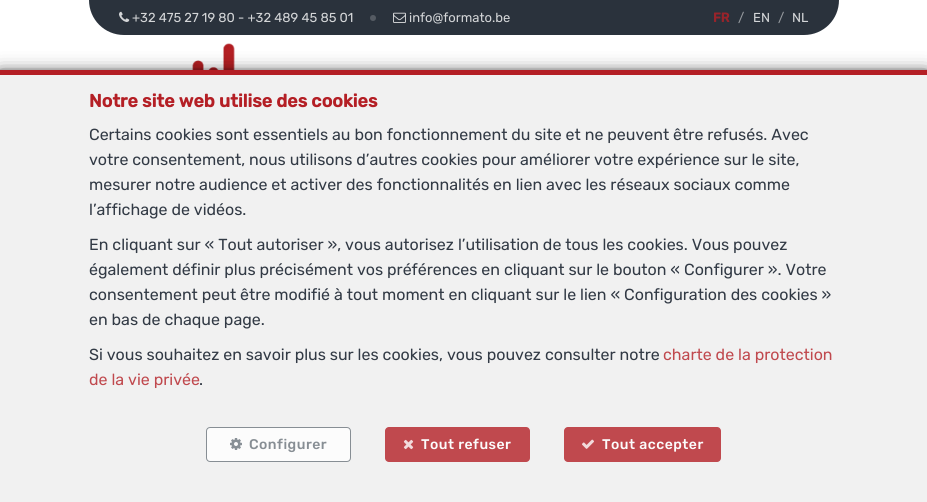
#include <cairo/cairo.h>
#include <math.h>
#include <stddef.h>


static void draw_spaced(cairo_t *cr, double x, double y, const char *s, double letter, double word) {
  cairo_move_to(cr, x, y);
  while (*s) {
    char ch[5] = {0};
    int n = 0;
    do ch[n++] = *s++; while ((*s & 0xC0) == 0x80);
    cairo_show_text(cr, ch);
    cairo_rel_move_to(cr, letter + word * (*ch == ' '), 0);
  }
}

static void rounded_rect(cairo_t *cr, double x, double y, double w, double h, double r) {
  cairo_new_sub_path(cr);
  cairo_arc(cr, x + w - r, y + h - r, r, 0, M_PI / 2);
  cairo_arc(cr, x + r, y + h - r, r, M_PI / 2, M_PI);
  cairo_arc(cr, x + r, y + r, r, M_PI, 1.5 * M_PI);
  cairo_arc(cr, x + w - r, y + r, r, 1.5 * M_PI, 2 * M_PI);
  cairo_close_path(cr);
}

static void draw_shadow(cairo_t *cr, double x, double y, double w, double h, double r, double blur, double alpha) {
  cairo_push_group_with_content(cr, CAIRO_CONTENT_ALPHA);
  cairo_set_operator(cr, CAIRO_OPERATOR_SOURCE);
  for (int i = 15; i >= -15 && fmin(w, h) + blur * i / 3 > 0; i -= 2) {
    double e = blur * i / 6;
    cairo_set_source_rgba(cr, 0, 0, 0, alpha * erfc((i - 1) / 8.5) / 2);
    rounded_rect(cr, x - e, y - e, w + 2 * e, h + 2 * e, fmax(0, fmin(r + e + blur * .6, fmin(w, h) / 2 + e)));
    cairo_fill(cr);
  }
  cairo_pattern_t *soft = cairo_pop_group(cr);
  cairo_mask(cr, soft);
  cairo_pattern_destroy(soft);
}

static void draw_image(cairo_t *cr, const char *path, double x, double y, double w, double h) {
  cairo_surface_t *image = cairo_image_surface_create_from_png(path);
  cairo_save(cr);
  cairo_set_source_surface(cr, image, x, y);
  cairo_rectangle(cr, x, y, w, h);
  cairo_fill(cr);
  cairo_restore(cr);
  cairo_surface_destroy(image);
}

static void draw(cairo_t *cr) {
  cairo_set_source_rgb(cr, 1, 1, 1);
  cairo_paint(cr);
  cairo_set_source_rgb(cr, 42 / 255.0, 50 / 255.0, 60 / 255.0);
  cairo_new_path(cr);
  cairo_move_to(cr, 89, 0);
  cairo_line_to(cr, 839, 0);
  cairo_curve_to(cr, 839, 19.5, 823.5, 35, 804, 35);
  cairo_line_to(cr, 124, 35);
  cairo_curve_to(cr, 104.5, 35, 89, 19.5, 89, 0);
  cairo_close_path(cr);
  cairo_fill(cr);
  draw_image(cr, "images/1.png", 119, 11, 11, 11);
  cairo_set_source_rgb(cr, 85 / 255.0, 91 / 255.0, 99 / 255.0);
  cairo_arc(cr, 373, 18, 3, 0, 2 * M_PI);
  cairo_fill(cr);
  draw_image(cr, "images/2.png", 393, 12, 13, 11);
  draw_image(cr, "images/3.png", 192, 43, 43, 27);
  cairo_set_source_rgb(cr, 0, 0, 0);
  draw_shadow(cr, 0, 76, 927, 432, 0, 10, 0.9);
  draw_shadow(cr, 0, 74, 927, 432, 0, 4, 0.9);
  cairo_set_source_rgb(cr, 241 / 255.0, 241 / 255.0, 241 / 255.0);
  cairo_rectangle(cr, 0, 75, 927, 427);
  cairo_fill(cr);
  cairo_set_source_rgb(cr, 180 / 255.0, 31 / 255.0, 37 / 255.0);
  cairo_rectangle(cr, 0, 70, 927, 5);
  cairo_fill(cr);
  cairo_set_source_rgb(cr, 252 / 255.0, 252 / 255.0, 252 / 255.0);
  rounded_rect(cr, 206.5, 427.5, 144, 34, 3.5);
  cairo_fill_preserve(cr);
  cairo_set_source_rgb(cr, 135 / 255.0, 142 / 255.0, 148 / 255.0);
  cairo_set_line_width(cr, 1);
  cairo_stroke(cr);
  draw_image(cr, "images/4.png", 230, 438, 12, 12);
  cairo_set_source_rgb(cr, 192 / 255.0, 73 / 255.0, 78 / 255.0);
  rounded_rect(cr, 385, 427, 145, 35, 4);
  cairo_fill(cr);
  draw_image(cr, "images/5.png", 403, 439, 11, 11);
  rounded_rect(cr, 564, 427, 157, 35, 4);
  cairo_fill(cr);
  draw_image(cr, "images/6.png", 582, 439, 12, 10);
  cairo_select_font_face(cr, "Rubik", CAIRO_FONT_SLANT_NORMAL, CAIRO_FONT_WEIGHT_NORMAL);
  cairo_set_font_size(cr, 13);
  cairo_set_source_rgb(cr, 212 / 255.0, 214 / 255.0, 216 / 255.0);
  cairo_move_to(cr, 132, 22);
  cairo_show_text(cr, "+32 475 27 19 80 - +32 489 45 85 01");
  cairo_move_to(cr, 409, 22);
  cairo_show_text(cr, "info@formato.be");
  cairo_select_font_face(cr, "Rubik", CAIRO_FONT_SLANT_NORMAL, CAIRO_FONT_WEIGHT_BOLD);
  cairo_set_source_rgb(cr, 152 / 255.0, 35 / 255.0, 42 / 255.0);
  cairo_move_to(cr, 713, 22);
  cairo_show_text(cr, "FR");
  cairo_select_font_face(cr, "Rubik", CAIRO_FONT_SLANT_NORMAL, CAIRO_FONT_WEIGHT_NORMAL);
  cairo_set_source_rgb(cr, 149 / 255.0, 153 / 255.0, 158 / 255.0);
  cairo_move_to(cr, 738, 22);
  cairo_show_text(cr, "/");
  cairo_set_source_rgb(cr, 212 / 255.0, 214 / 255.0, 216 / 255.0);
  cairo_move_to(cr, 753, 22);
  cairo_show_text(cr, "EN");
  cairo_set_source_rgb(cr, 149 / 255.0, 153 / 255.0, 158 / 255.0);
  cairo_move_to(cr, 778, 22);
  cairo_show_text(cr, "/");
  cairo_set_source_rgb(cr, 212 / 255.0, 214 / 255.0, 216 / 255.0);
  cairo_move_to(cr, 792, 22);
  cairo_show_text(cr, "NL");
  cairo_select_font_face(cr, "Rubik", CAIRO_FONT_SLANT_NORMAL, CAIRO_FONT_WEIGHT_BOLD);
  cairo_set_font_size(cr, 18);
  cairo_set_source_rgb(cr, 180 / 255.0, 31 / 255.0, 37 / 255.0);
  cairo_move_to(cr, 89, 107);
  cairo_show_text(cr, "Notre site web utilise des cookies");
  cairo_select_font_face(cr, "Rubik", CAIRO_FONT_SLANT_NORMAL, CAIRO_FONT_WEIGHT_NORMAL);
  cairo_set_font_size(cr, 16);
  cairo_set_source_rgb(cr, 50 / 255.0, 58 / 255.0, 69 / 255.0);
  cairo_move_to(cr, 89, 140);
  cairo_show_text(cr, "Certains cookies sont essentiels au bon fonctionnement du site et ne peuvent être refusés. Avec");
  cairo_move_to(cr, 89, 165);
  cairo_show_text(cr, "votre consentement, nous utilisons d’autres cookies pour améliorer votre expérience sur le site,");
  cairo_move_to(cr, 89, 190);
  cairo_show_text(cr, "mesurer notre audience et activer des fonctionnalités en lien avec les réseaux sociaux comme");
  cairo_move_to(cr, 89, 215);
  cairo_show_text(cr, "l’affichage de vidéos.");
  cairo_move_to(cr, 89, 250);
  cairo_show_text(cr, "En cliquant sur « Tout autoriser », vous autorisez l’utilisation de tous les cookies. Vous pouvez");
  cairo_move_to(cr, 89, 275);
  cairo_show_text(cr, "également définir plus précisément vos préférences en cliquant sur le bouton « Configurer ». Votre");
  cairo_move_to(cr, 89, 300);
  cairo_show_text(cr, "consentement peut être modifié à tout moment en cliquant sur le lien « Configuration des cookies »");
  cairo_move_to(cr, 89, 325);
  cairo_show_text(cr, "en bas de chaque page.");
  cairo_move_to(cr, 89, 360);
  cairo_show_text(cr, "Si vous souhaitez en savoir plus sur les cookies, vous pouvez consulter notre");
  cairo_set_source_rgb(cr, 192 / 255.0, 73 / 255.0, 78 / 255.0);
  cairo_move_to(cr, 663, 360);
  cairo_show_text(cr, "charte de la protection");
  cairo_move_to(cr, 89, 385);
  cairo_show_text(cr, "de la vie privée");
  cairo_set_source_rgb(cr, 50 / 255.0, 58 / 255.0, 69 / 255.0);
  cairo_move_to(cr, 199, 385);
  cairo_show_text(cr, ".");
  cairo_select_font_face(cr, "Rubik Medium", CAIRO_FONT_SLANT_NORMAL, CAIRO_FONT_WEIGHT_NORMAL);
  cairo_set_font_size(cr, 14);
  cairo_set_source_rgb(cr, 135 / 255.0, 142 / 255.0, 148 / 255.0);
  draw_spaced(cr, 249, 449, "Configurer", 0.5, 0);
  cairo_set_source_rgb(cr, 252 / 255.0, 252 / 255.0, 252 / 255.0);
  draw_spaced(cr, 421, 449, "Tout refuser", 0.5, 0);
  draw_spaced(cr, 602, 449, "Tout accepter", 0.5, 0);
}

int main(void) {
  cairo_surface_t *surface = cairo_image_surface_create(CAIRO_FORMAT_RGB24, 927, 502);
  cairo_t *cr = cairo_create(surface);
  cairo_font_options_t *options = cairo_font_options_create();
  cairo_font_options_set_hint_metrics(options, CAIRO_HINT_METRICS_OFF);
  cairo_font_options_set_hint_style(options, CAIRO_HINT_STYLE_NONE);
  cairo_set_font_options(cr, options);
  cairo_set_miter_limit(cr, 4);
  draw(cr);
  cairo_surface_write_to_png(surface, "out.png");
  cairo_font_options_destroy(options);
  cairo_destroy(cr);
  cairo_surface_destroy(surface);
  return 0;
}
